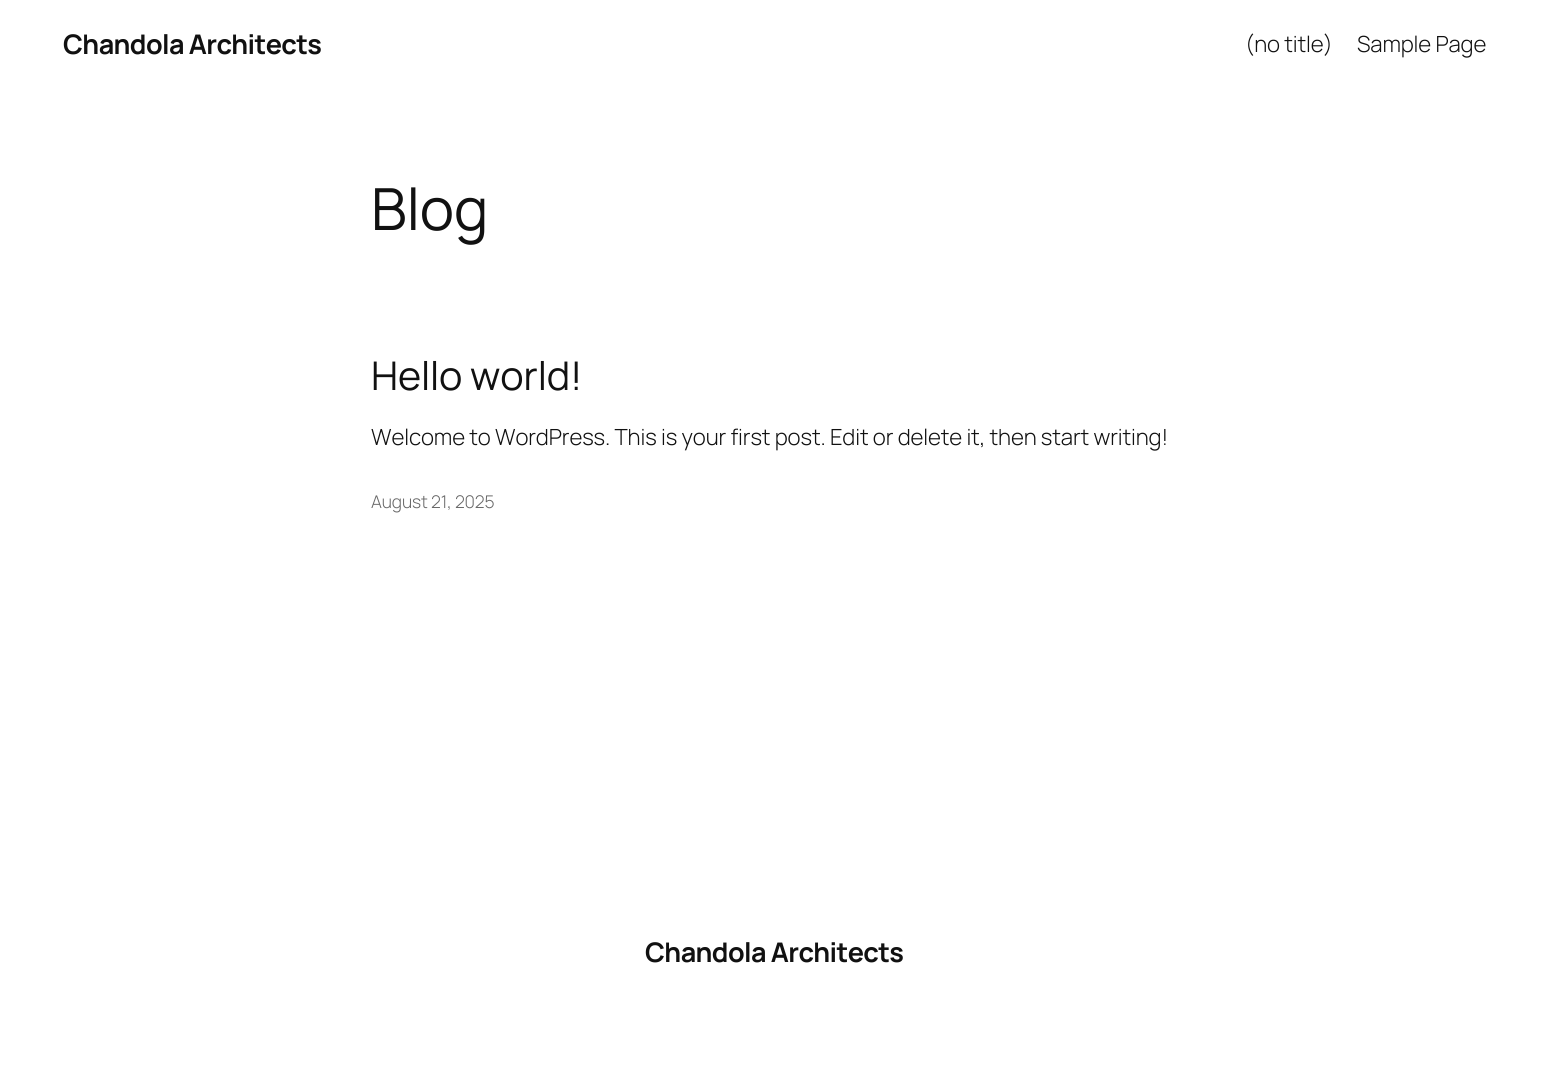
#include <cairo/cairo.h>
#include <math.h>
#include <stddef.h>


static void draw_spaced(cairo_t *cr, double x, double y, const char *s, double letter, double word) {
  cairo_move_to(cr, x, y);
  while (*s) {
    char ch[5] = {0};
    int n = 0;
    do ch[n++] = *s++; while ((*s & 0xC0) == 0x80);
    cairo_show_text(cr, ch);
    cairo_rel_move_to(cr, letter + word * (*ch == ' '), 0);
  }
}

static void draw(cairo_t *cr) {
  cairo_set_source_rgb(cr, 1, 1, 1);
  cairo_paint(cr);
  cairo_select_font_face(cr, "Manrope", CAIRO_FONT_SLANT_NORMAL, CAIRO_FONT_WEIGHT_BOLD);
  cairo_set_font_size(cr, 27);
  cairo_set_source_rgb(cr, 17 / 255.0, 17 / 255.0, 17 / 255.0);
  draw_spaced(cr, 63, 54, "Chandola Architects", -0.6, 0);
  cairo_select_font_face(cr, "Manrope Light", CAIRO_FONT_SLANT_NORMAL, CAIRO_FONT_WEIGHT_NORMAL);
  cairo_set_font_size(cr, 22.25);
  draw_spaced(cr, 1245, 52, "(no title)", -0.12, 0);
  draw_spaced(cr, 1357, 52, "Sample Page", -0.12, 0);
  cairo_select_font_face(cr, "Manrope", CAIRO_FONT_SLANT_NORMAL, CAIRO_FONT_WEIGHT_NORMAL);
  cairo_set_font_size(cr, 58);
  draw_spaced(cr, 371, 230, "Blog", -0.12, 0);
  cairo_set_font_size(cr, 39.5);
  draw_spaced(cr, 371, 390, "Hello world!", -0.12, 0);
  cairo_select_font_face(cr, "Manrope Light", CAIRO_FONT_SLANT_NORMAL, CAIRO_FONT_WEIGHT_NORMAL);
  cairo_set_font_size(cr, 22.25);
  draw_spaced(cr, 371, 445, "Welcome to WordPress. This is your first post. Edit or delete it, then start writing!", -0.12, 0);
  cairo_set_font_size(cr, 17.5);
  cairo_set_source_rgb(cr, 104 / 255.0, 104 / 255.0, 104 / 255.0);
  draw_spaced(cr, 371, 508, "August 21, 2025", -0.12, 0);
  cairo_select_font_face(cr, "Manrope", CAIRO_FONT_SLANT_NORMAL, CAIRO_FONT_WEIGHT_BOLD);
  cairo_set_font_size(cr, 27);
  cairo_set_source_rgb(cr, 17 / 255.0, 17 / 255.0, 17 / 255.0);
  draw_spaced(cr, 645, 962, "Chandola Architects", -0.6, 0);
}

int main(void) {
  cairo_surface_t *surface = cairo_image_surface_create(CAIRO_FORMAT_RGB24, 1548, 1068);
  cairo_t *cr = cairo_create(surface);
  cairo_font_options_t *options = cairo_font_options_create();
  cairo_font_options_set_hint_metrics(options, CAIRO_HINT_METRICS_OFF);
  cairo_font_options_set_hint_style(options, CAIRO_HINT_STYLE_NONE);
  cairo_set_font_options(cr, options);
  cairo_set_miter_limit(cr, 4);
  draw(cr);
  cairo_surface_write_to_png(surface, "out.png");
  cairo_font_options_destroy(options);
  cairo_destroy(cr);
  cairo_surface_destroy(surface);
  return 0;
}
